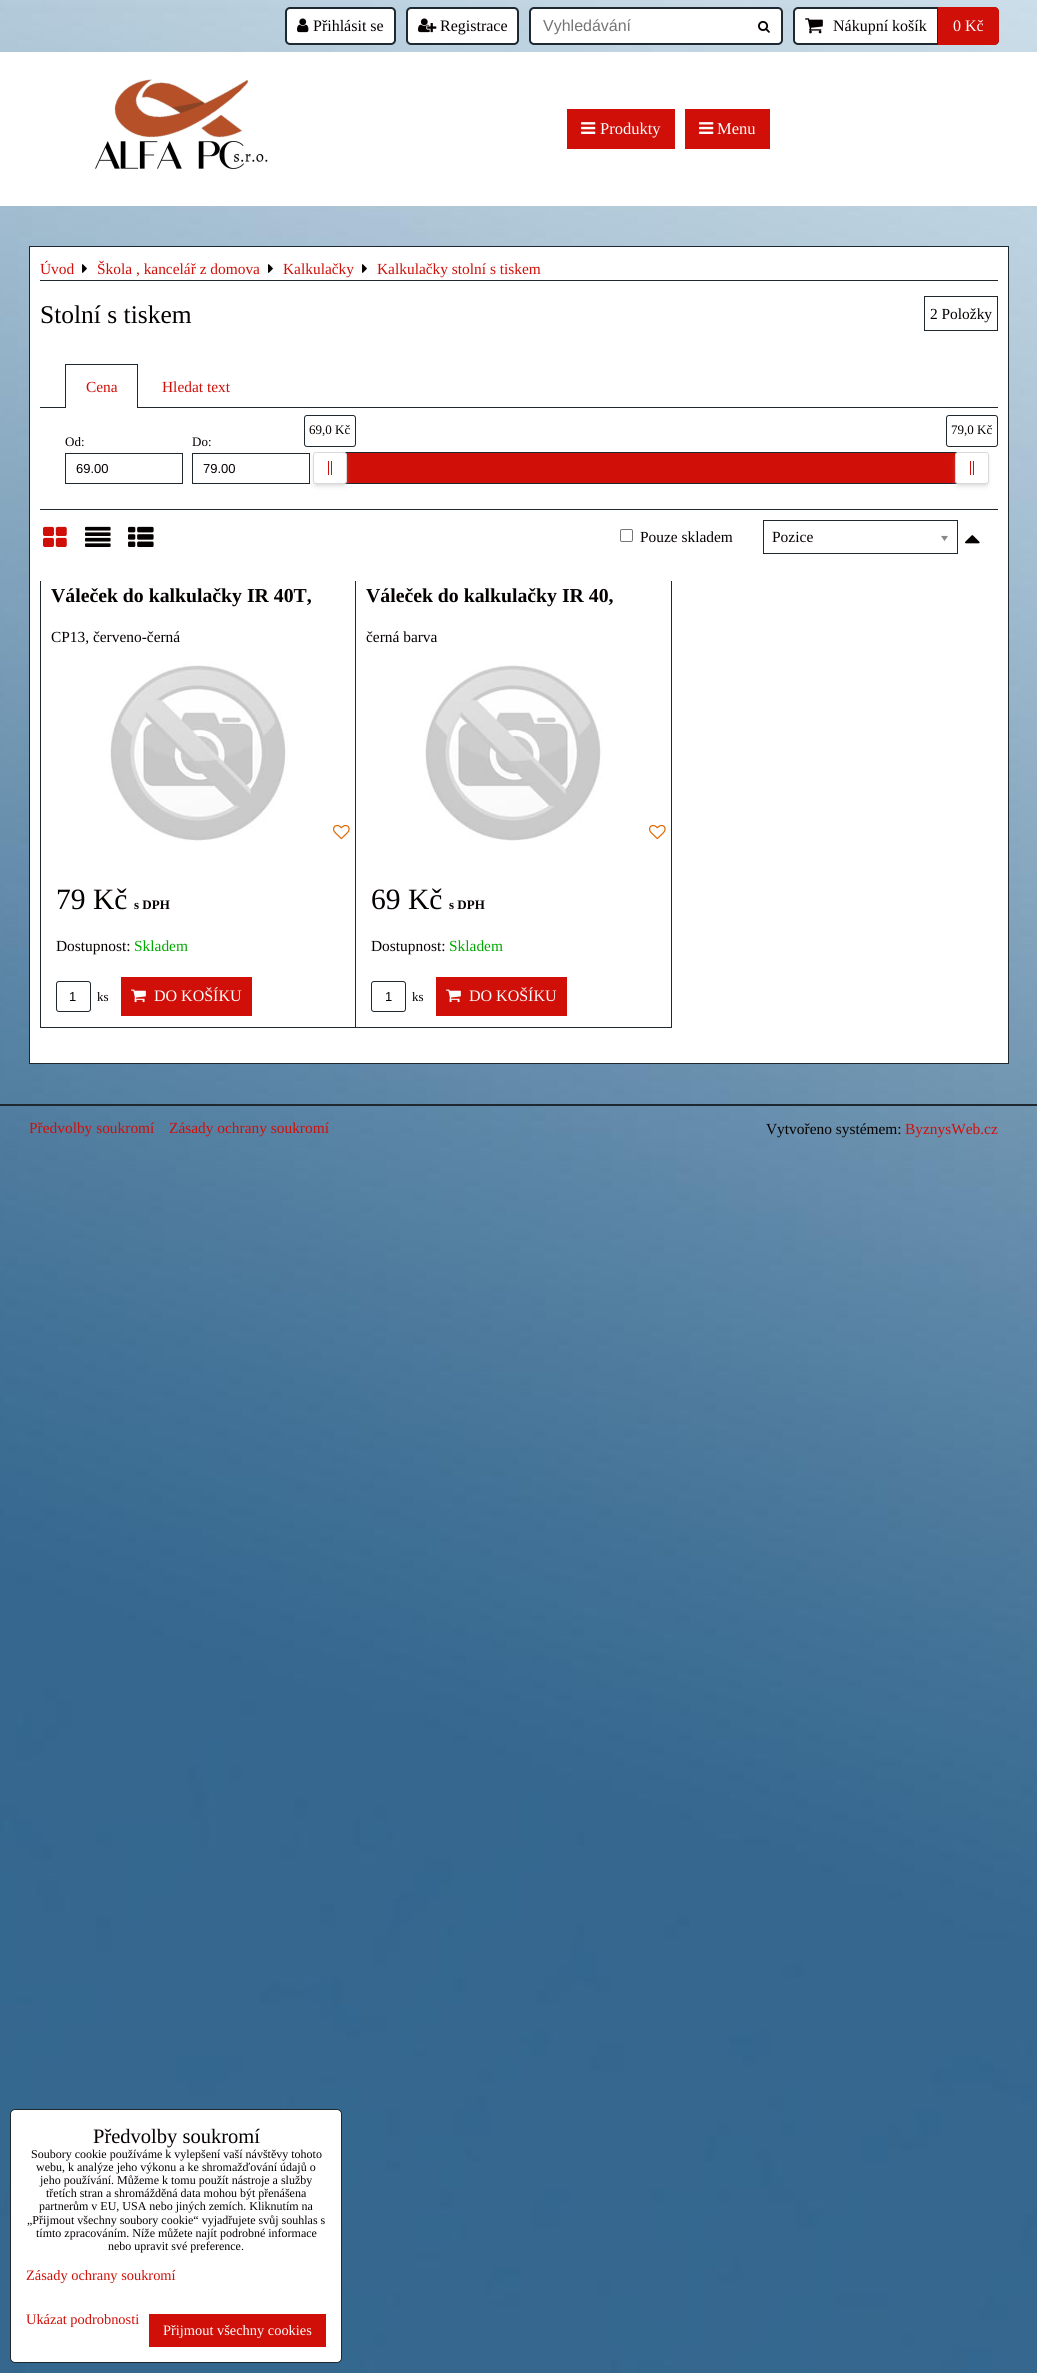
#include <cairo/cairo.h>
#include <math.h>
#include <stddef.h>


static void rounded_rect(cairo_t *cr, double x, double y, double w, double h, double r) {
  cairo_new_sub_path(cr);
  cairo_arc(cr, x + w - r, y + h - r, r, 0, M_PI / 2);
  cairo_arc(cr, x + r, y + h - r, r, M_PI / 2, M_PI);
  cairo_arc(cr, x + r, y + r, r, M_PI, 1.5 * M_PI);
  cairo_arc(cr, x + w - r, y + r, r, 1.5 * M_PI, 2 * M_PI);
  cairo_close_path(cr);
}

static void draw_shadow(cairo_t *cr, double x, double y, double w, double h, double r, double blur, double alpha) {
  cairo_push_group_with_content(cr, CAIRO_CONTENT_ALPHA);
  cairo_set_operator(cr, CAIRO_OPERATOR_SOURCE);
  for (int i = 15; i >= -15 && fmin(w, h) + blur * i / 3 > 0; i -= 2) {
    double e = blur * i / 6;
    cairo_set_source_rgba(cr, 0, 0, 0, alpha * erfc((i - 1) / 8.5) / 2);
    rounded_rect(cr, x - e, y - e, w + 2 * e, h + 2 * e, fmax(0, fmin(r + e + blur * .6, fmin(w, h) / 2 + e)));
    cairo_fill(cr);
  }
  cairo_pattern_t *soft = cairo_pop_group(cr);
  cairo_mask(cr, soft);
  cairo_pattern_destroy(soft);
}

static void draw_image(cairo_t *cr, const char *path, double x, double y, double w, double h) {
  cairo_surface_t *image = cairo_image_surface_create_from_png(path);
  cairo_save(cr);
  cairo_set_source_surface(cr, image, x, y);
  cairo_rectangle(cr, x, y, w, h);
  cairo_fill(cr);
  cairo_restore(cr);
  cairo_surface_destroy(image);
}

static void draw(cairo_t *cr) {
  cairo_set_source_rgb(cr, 1, 1, 1);
  cairo_paint(cr);
  draw_image(cr, "images/1.png", 0, 0, 1037, 2373);
  cairo_set_source_rgb(cr, 1, 1, 1);
  rounded_rect(cr, 286, 8, 109, 36, 4);
  cairo_fill_preserve(cr);
  cairo_set_source_rgb(cr, 29 / 255.0, 40 / 255.0, 48 / 255.0);
  cairo_stroke(cr);
  draw_image(cr, "images/2.png", 297, 18, 12, 15);
  cairo_set_source_rgb(cr, 1, 1, 1);
  rounded_rect(cr, 407, 8, 111, 36, 4);
  cairo_fill_preserve(cr);
  cairo_set_source_rgb(cr, 29 / 255.0, 40 / 255.0, 48 / 255.0);
  cairo_stroke(cr);
  draw_image(cr, "images/3.png", 418, 18, 19, 15);
  cairo_set_source_rgb(cr, 1, 1, 1);
  rounded_rect(cr, 530, 8, 252, 36, 4);
  cairo_fill_preserve(cr);
  cairo_set_source_rgb(cr, 29 / 255.0, 40 / 255.0, 48 / 255.0);
  cairo_stroke(cr);
  draw_image(cr, "images/4.png", 758, 21, 12, 12);
  cairo_set_source_rgb(cr, 1, 1, 1);
  rounded_rect(cr, 794, 8, 204, 36, 4);
  cairo_fill_preserve(cr);
  cairo_set_source_rgb(cr, 29 / 255.0, 40 / 255.0, 48 / 255.0);
  cairo_stroke(cr);
  draw_image(cr, "images/5.png", 805, 18, 18, 16);
  cairo_set_source_rgb(cr, 207 / 255.0, 15 / 255.0, 8 / 255.0);
  cairo_new_path(cr);
  cairo_move_to(cr, 937, 7);
  cairo_line_to(cr, 994, 7);
  cairo_curve_to(cr, 997, 7, 999, 9, 999, 12);
  cairo_line_to(cr, 999, 40);
  cairo_curve_to(cr, 999, 43, 997, 45, 994, 45);
  cairo_line_to(cr, 937, 45);
  cairo_close_path(cr);
  cairo_fill(cr);
  cairo_set_source_rgb(cr, 29 / 255.0, 40 / 255.0, 48 / 255.0);
  cairo_rectangle(cr, 937, 7, 1, 38);
  cairo_fill(cr);
  cairo_set_source_rgb(cr, 1, 1, 1);
  cairo_rectangle(cr, 0, 52, 1037, 154);
  cairo_fill(cr);
  draw_image(cr, "images/6.png", 95, 79, 173, 90);
  cairo_set_source_rgb(cr, 207 / 255.0, 15 / 255.0, 8 / 255.0);
  cairo_rectangle(cr, 567, 109, 108, 40);
  cairo_fill(cr);
  draw_image(cr, "images/7.png", 581, 122, 15, 12);
  cairo_rectangle(cr, 685, 109, 85, 40);
  cairo_fill(cr);
  draw_image(cr, "images/7.png", 699, 122, 15, 12);
  cairo_set_source_rgb(cr, 1, 1, 1);
  cairo_rectangle(cr, 29.5, 246.5, 979, 817);
  cairo_fill_preserve(cr);
  cairo_set_source_rgb(cr, 29 / 255.0, 40 / 255.0, 48 / 255.0);
  cairo_set_line_width(cr, 1);
  cairo_stroke(cr);
  draw_image(cr, "images/8.png", 82, 264, 5, 9);
  draw_image(cr, "images/8.png", 268, 264, 5, 9);
  draw_image(cr, "images/8.png", 362, 264, 5, 9);
  cairo_rectangle(cr, 40, 280, 958, 1);
  cairo_fill(cr);
  cairo_rectangle(cr, 924.5, 296.5, 73, 34);
  cairo_stroke(cr);
  cairo_rectangle(cr, 40, 407, 958, 1);
  cairo_fill(cr);
  cairo_set_source_rgb(cr, 1, 1, 1);
  cairo_rectangle(cr, 66, 407, 71, 1);
  cairo_fill(cr);
  cairo_set_source_rgb(cr, 29 / 255.0, 40 / 255.0, 48 / 255.0);
  cairo_rectangle(cr, 65, 364, 73, 1);
  cairo_fill(cr);
  cairo_rectangle(cr, 137, 364, 1, 44);
  cairo_fill(cr);
  cairo_rectangle(cr, 65, 364, 1, 44);
  cairo_fill(cr);
  cairo_rectangle(cr, 40, 509, 958, 1);
  cairo_fill(cr);
  cairo_rectangle(cr, 329.5, 452.5, 643, 31);
  cairo_stroke(cr);
  cairo_set_source_rgb(cr, 207 / 255.0, 15 / 255.0, 8 / 255.0);
  cairo_rectangle(cr, 346, 453, 610, 30);
  cairo_fill(cr);
  cairo_rectangle(cr, 192.5, 453.5, 117, 30);
  cairo_set_source_rgb(cr, 29 / 255.0, 40 / 255.0, 48 / 255.0);
  cairo_stroke(cr);
  cairo_set_source_rgb(cr, 187 / 255.0, 187 / 255.0, 187 / 255.0);
  draw_shadow(cr, 316, 458, 28, 26, 0, 3, 1);
  cairo_set_source_rgb(cr, 1, 1, 1);
  rounded_rect(cr, 313.5, 452.5, 33, 31, 2.5);
  cairo_fill_preserve(cr);
  cairo_set_source_rgb(cr, 217 / 255.0, 217 / 255.0, 217 / 255.0);
  cairo_stroke(cr);
  rounded_rect(cr, 304.5, 415.5, 51, 31, 2.5);
  cairo_set_source_rgb(cr, 29 / 255.0, 40 / 255.0, 48 / 255.0);
  cairo_stroke(cr);
  cairo_set_source_rgb(cr, 207 / 255.0, 15 / 255.0, 8 / 255.0);
  cairo_rectangle(cr, 328, 461, 1, 14);
  cairo_fill(cr);
  cairo_rectangle(cr, 331, 461, 1, 14);
  cairo_fill(cr);
  cairo_set_source_rgb(cr, 187 / 255.0, 187 / 255.0, 187 / 255.0);
  draw_shadow(cr, 958, 458, 28, 26, 0, 3, 1);
  cairo_set_source_rgb(cr, 1, 1, 1);
  rounded_rect(cr, 955.5, 452.5, 33, 31, 2.5);
  cairo_fill_preserve(cr);
  cairo_set_source_rgb(cr, 217 / 255.0, 217 / 255.0, 217 / 255.0);
  cairo_stroke(cr);
  rounded_rect(cr, 946.5, 415.5, 51, 31, 2.5);
  cairo_set_source_rgb(cr, 29 / 255.0, 40 / 255.0, 48 / 255.0);
  cairo_stroke(cr);
  cairo_set_source_rgb(cr, 207 / 255.0, 15 / 255.0, 8 / 255.0);
  cairo_rectangle(cr, 970, 461, 1, 14);
  cairo_fill(cr);
  cairo_rectangle(cr, 973, 461, 1, 14);
  cairo_fill(cr);
  cairo_rectangle(cr, 65.5, 453.5, 117, 30);
  cairo_set_source_rgb(cr, 29 / 255.0, 40 / 255.0, 48 / 255.0);
  cairo_stroke(cr);
  draw_image(cr, "images/9.png", 43, 526, 24, 21);
  draw_image(cr, "images/10.png", 85, 526, 26, 21);
  draw_image(cr, "images/11.png", 128, 526, 26, 21);
  rounded_rect(cr, 620.5, 529.5, 12, 12, 1.5);
  cairo_set_source_rgb(cr, 118 / 255.0, 118 / 255.0, 118 / 255.0);
  cairo_stroke(cr);
  cairo_rectangle(cr, 763.5, 520.5, 194, 33);
  cairo_set_source_rgb(cr, 29 / 255.0, 40 / 255.0, 48 / 255.0);
  cairo_stroke(cr);
  draw_image(cr, "images/12.png", 941, 535, 7, 7);
  draw_image(cr, "images/13.png", 965, 535, 15, 9);
  cairo_rectangle(cr, 355, 581, 1, 447);
  cairo_fill(cr);
  cairo_rectangle(cr, 40, 1027, 316, 1);
  cairo_fill(cr);
  cairo_rectangle(cr, 40, 581, 1, 447);
  cairo_fill(cr);
  draw_image(cr, "images/14.png", 109, 662, 179, 179);
  draw_image(cr, "images/15.png", 333, 824, 17, 16);
  rounded_rect(cr, 56.5, 981.5, 34, 30, 2.5);
  cairo_stroke(cr);
  cairo_set_source_rgb(cr, 207 / 255.0, 15 / 255.0, 8 / 255.0);
  cairo_rectangle(cr, 121, 977, 131, 39);
  cairo_fill(cr);
  draw_image(cr, "images/16.png", 131, 989, 15, 14);
  cairo_set_source_rgb(cr, 29 / 255.0, 40 / 255.0, 48 / 255.0);
  cairo_rectangle(cr, 671, 581, 1, 447);
  cairo_fill(cr);
  cairo_rectangle(cr, 356, 1027, 316, 1);
  cairo_fill(cr);
  draw_image(cr, "images/14.png", 424, 662, 179, 179);
  draw_image(cr, "images/15.png", 649, 824, 17, 16);
  rounded_rect(cr, 371.5, 981.5, 34, 30, 2.5);
  cairo_stroke(cr);
  cairo_set_source_rgb(cr, 207 / 255.0, 15 / 255.0, 8 / 255.0);
  cairo_rectangle(cr, 436, 977, 131, 39);
  cairo_fill(cr);
  draw_image(cr, "images/16.png", 446, 989, 15, 14);
  cairo_set_source_rgb(cr, 29 / 255.0, 40 / 255.0, 48 / 255.0);
  cairo_rectangle(cr, 0, 1104, 1037, 2);
  cairo_fill(cr);
  cairo_set_source_rgb(cr, 1, 1, 1);
  rounded_rect(cr, 10.5, 2109.5, 331, 253, 4.5);
  cairo_fill_preserve(cr);
  cairo_set_source_rgb(cr, 29 / 255.0, 40 / 255.0, 48 / 255.0);
  cairo_stroke(cr);
  cairo_set_source_rgb(cr, 207 / 255.0, 15 / 255.0, 8 / 255.0);
  cairo_rectangle(cr, 149, 2314, 177, 33);
  cairo_fill(cr);
  cairo_select_font_face(cr, "Liberation Serif", CAIRO_FONT_SLANT_NORMAL, CAIRO_FONT_WEIGHT_NORMAL);
  cairo_set_font_size(cr, 16);
  cairo_set_source_rgb(cr, 5 / 255.0, 0, 0);
  cairo_move_to(cr, 313, 31);
  cairo_show_text(cr, "Přihlásit se");
  cairo_move_to(cr, 440, 31);
  cairo_show_text(cr, "Registrace");
  cairo_select_font_face(cr, "Liberation Sans", CAIRO_FONT_SLANT_NORMAL, CAIRO_FONT_WEIGHT_NORMAL);
  cairo_set_source_rgb(cr, 117 / 255.0, 117 / 255.0, 117 / 255.0);
  cairo_move_to(cr, 543, 31);
  cairo_show_text(cr, "Vyhledávání");
  cairo_select_font_face(cr, "Liberation Serif", CAIRO_FONT_SLANT_NORMAL, CAIRO_FONT_WEIGHT_NORMAL);
  cairo_set_source_rgb(cr, 5 / 255.0, 0, 0);
  cairo_move_to(cr, 833, 31);
  cairo_show_text(cr, "Nákupní košík");
  cairo_set_source_rgb(cr, 1, 1, 1);
  cairo_move_to(cr, 953, 31);
  cairo_show_text(cr, "0 Kč");
  cairo_set_font_size(cr, 16.5);
  cairo_move_to(cr, 600, 134);
  cairo_show_text(cr, "Produkty");
  cairo_move_to(cr, 717, 134);
  cairo_show_text(cr, "Menu");
  cairo_set_font_size(cr, 15.4);
  cairo_set_source_rgb(cr, 207 / 255.0, 15 / 255.0, 8 / 255.0);
  cairo_move_to(cr, 40, 274);
  cairo_show_text(cr, "Úvod");
  cairo_move_to(cr, 97, 274);
  cairo_show_text(cr, "Škola , kancelář z domova");
  cairo_move_to(cr, 283, 274);
  cairo_show_text(cr, "Kalkulačky");
  cairo_move_to(cr, 377, 274);
  cairo_show_text(cr, "Kalkulačky stolní s tiskem");
  cairo_set_font_size(cr, 25.5);
  cairo_set_source_rgb(cr, 5 / 255.0, 0, 0);
  cairo_move_to(cr, 40, 323);
  cairo_show_text(cr, "Stolní s tiskem");
  cairo_set_font_size(cr, 15.4);
  cairo_move_to(cr, 930, 319);
  cairo_show_text(cr, "2 Položky");
  cairo_set_source_rgb(cr, 207 / 255.0, 15 / 255.0, 8 / 255.0);
  cairo_move_to(cr, 86, 392);
  cairo_show_text(cr, "Cena");
  cairo_move_to(cr, 162, 392);
  cairo_show_text(cr, "Hledat text");
  cairo_set_font_size(cr, 13);
  cairo_set_source_rgb(cr, 5 / 255.0, 0, 0);
  cairo_move_to(cr, 309, 434);
  cairo_show_text(cr, "69,0 Kč");
  cairo_move_to(cr, 951, 434);
  cairo_show_text(cr, "79,0 Kč");
  cairo_move_to(cr, 65, 446);
  cairo_show_text(cr, "Od:");
  cairo_select_font_face(cr, "Liberation Sans", CAIRO_FONT_SLANT_NORMAL, CAIRO_FONT_WEIGHT_NORMAL);
  cairo_move_to(cr, 76, 473);
  cairo_show_text(cr, "69.00");
  cairo_select_font_face(cr, "Liberation Serif", CAIRO_FONT_SLANT_NORMAL, CAIRO_FONT_WEIGHT_NORMAL);
  cairo_move_to(cr, 192, 446);
  cairo_show_text(cr, "Do:");
  cairo_select_font_face(cr, "Liberation Sans", CAIRO_FONT_SLANT_NORMAL, CAIRO_FONT_WEIGHT_NORMAL);
  cairo_move_to(cr, 203, 473);
  cairo_show_text(cr, "79.00");
  cairo_select_font_face(cr, "Liberation Serif", CAIRO_FONT_SLANT_NORMAL, CAIRO_FONT_WEIGHT_NORMAL);
  cairo_set_font_size(cr, 15.4);
  cairo_move_to(cr, 640, 542);
  cairo_show_text(cr, "Pouze skladem");
  cairo_set_font_size(cr, 15.5);
  cairo_move_to(cr, 772, 542);
  cairo_show_text(cr, "Pozice");
  cairo_select_font_face(cr, "Liberation Serif", CAIRO_FONT_SLANT_NORMAL, CAIRO_FONT_WEIGHT_BOLD);
  cairo_set_font_size(cr, 19.75);
  cairo_move_to(cr, 51, 602);
  cairo_show_text(cr, "Váleček do kalkulačky IR 40T,");
  cairo_select_font_face(cr, "Liberation Serif", CAIRO_FONT_SLANT_NORMAL, CAIRO_FONT_WEIGHT_NORMAL);
  cairo_set_font_size(cr, 15.4);
  cairo_move_to(cr, 51, 642);
  cairo_show_text(cr, "CP13, červeno-černá");
  cairo_set_font_size(cr, 29.5);
  cairo_move_to(cr, 56, 909);
  cairo_show_text(cr, "79 Kč");
  cairo_select_font_face(cr, "Liberation Serif", CAIRO_FONT_SLANT_NORMAL, CAIRO_FONT_WEIGHT_BOLD);
  cairo_set_font_size(cr, 13);
  cairo_move_to(cr, 134, 909);
  cairo_show_text(cr, "s DPH");
  cairo_select_font_face(cr, "Liberation Serif", CAIRO_FONT_SLANT_NORMAL, CAIRO_FONT_WEIGHT_NORMAL);
  cairo_set_font_size(cr, 15.4);
  cairo_move_to(cr, 56, 951);
  cairo_show_text(cr, "Dostupnost:");
  cairo_set_source_rgb(cr, 0, 168 / 255.0, 0);
  cairo_move_to(cr, 134, 951);
  cairo_show_text(cr, "Skladem");
  cairo_select_font_face(cr, "Liberation Sans", CAIRO_FONT_SLANT_NORMAL, CAIRO_FONT_WEIGHT_NORMAL);
  cairo_set_font_size(cr, 13);
  cairo_set_source_rgb(cr, 5 / 255.0, 0, 0);
  cairo_move_to(cr, 69, 1001);
  cairo_show_text(cr, "1");
  cairo_select_font_face(cr, "Liberation Serif", CAIRO_FONT_SLANT_NORMAL, CAIRO_FONT_WEIGHT_NORMAL);
  cairo_move_to(cr, 97, 1001);
  cairo_show_text(cr, "ks");
  cairo_set_font_size(cr, 16);
  cairo_set_source_rgb(cr, 1, 1, 1);
  cairo_move_to(cr, 154, 1001);
  cairo_show_text(cr, "DO KOŠÍKU");
  cairo_select_font_face(cr, "Liberation Serif", CAIRO_FONT_SLANT_NORMAL, CAIRO_FONT_WEIGHT_BOLD);
  cairo_set_font_size(cr, 19.75);
  cairo_set_source_rgb(cr, 5 / 255.0, 0, 0);
  cairo_move_to(cr, 366, 602);
  cairo_show_text(cr, "Váleček do kalkulačky IR 40,");
  cairo_select_font_face(cr, "Liberation Serif", CAIRO_FONT_SLANT_NORMAL, CAIRO_FONT_WEIGHT_NORMAL);
  cairo_set_font_size(cr, 15.4);
  cairo_move_to(cr, 366, 642);
  cairo_show_text(cr, "černá barva");
  cairo_set_font_size(cr, 29.5);
  cairo_move_to(cr, 371, 909);
  cairo_show_text(cr, "69 Kč");
  cairo_select_font_face(cr, "Liberation Serif", CAIRO_FONT_SLANT_NORMAL, CAIRO_FONT_WEIGHT_BOLD);
  cairo_set_font_size(cr, 13);
  cairo_move_to(cr, 449, 909);
  cairo_show_text(cr, "s DPH");
  cairo_select_font_face(cr, "Liberation Serif", CAIRO_FONT_SLANT_NORMAL, CAIRO_FONT_WEIGHT_NORMAL);
  cairo_set_font_size(cr, 15.4);
  cairo_move_to(cr, 371, 951);
  cairo_show_text(cr, "Dostupnost:");
  cairo_set_source_rgb(cr, 0, 168 / 255.0, 0);
  cairo_move_to(cr, 449, 951);
  cairo_show_text(cr, "Skladem");
  cairo_select_font_face(cr, "Liberation Sans", CAIRO_FONT_SLANT_NORMAL, CAIRO_FONT_WEIGHT_NORMAL);
  cairo_set_font_size(cr, 13);
  cairo_set_source_rgb(cr, 5 / 255.0, 0, 0);
  cairo_move_to(cr, 385, 1001);
  cairo_show_text(cr, "1");
  cairo_select_font_face(cr, "Liberation Serif", CAIRO_FONT_SLANT_NORMAL, CAIRO_FONT_WEIGHT_NORMAL);
  cairo_move_to(cr, 412, 1001);
  cairo_show_text(cr, "ks");
  cairo_set_font_size(cr, 16);
  cairo_set_source_rgb(cr, 1, 1, 1);
  cairo_move_to(cr, 469, 1001);
  cairo_show_text(cr, "DO KOŠÍKU");
  cairo_set_font_size(cr, 15.4);
  cairo_set_source_rgb(cr, 207 / 255.0, 15 / 255.0, 8 / 255.0);
  cairo_move_to(cr, 29, 1133);
  cairo_show_text(cr, "Předvolby soukromí");
  cairo_move_to(cr, 169, 1133);
  cairo_show_text(cr, "Zásady ochrany soukromí");
  cairo_set_source_rgb(cr, 5 / 255.0, 0, 0);
  cairo_move_to(cr, 766, 1134);
  cairo_show_text(cr, "Vytvořeno systémem:");
  cairo_set_source_rgb(cr, 207 / 255.0, 15 / 255.0, 8 / 255.0);
  cairo_move_to(cr, 905, 1134);
  cairo_show_text(cr, "ByznysWeb.cz");
  cairo_set_font_size(cr, 20.5);
  cairo_set_source_rgb(cr, 5 / 255.0, 0, 0);
  cairo_move_to(cr, 93, 2143);
  cairo_show_text(cr, "Předvolby soukromí");
  cairo_set_font_size(cr, 12);
  cairo_move_to(cr, 31, 2158);
  cairo_show_text(cr, "Soubory cookie používáme k vylepšení vaší návštěvy tohoto");
  cairo_move_to(cr, 36, 2171);
  cairo_show_text(cr, "webu, k analýze jeho výkonu a ke shromažďování údajů o");
  cairo_move_to(cr, 40, 2184);
  cairo_show_text(cr, "jeho používání. Můžeme k tomu použít nástroje a služby");
  cairo_move_to(cr, 46, 2197);
  cairo_show_text(cr, "třetích stran a shromážděná data mohou být přenášena");
  cairo_move_to(cr, 39, 2210);
  cairo_show_text(cr, "partnerům v EU, USA nebo jiných zemích. Kliknutím na");
  cairo_move_to(cr, 27, 2224);
  cairo_show_text(cr, "„Přijmout všechny soubory cookie“ vyjadřujete svůj souhlas s");
  cairo_move_to(cr, 36, 2237);
  cairo_show_text(cr, "tímto zpracováním. Níže můžete najít podrobné informace");
  cairo_move_to(cr, 108, 2250);
  cairo_show_text(cr, "nebo upravit své preference.");
  cairo_set_font_size(cr, 14.4);
  cairo_set_source_rgb(cr, 207 / 255.0, 15 / 255.0, 8 / 255.0);
  cairo_move_to(cr, 26, 2280);
  cairo_show_text(cr, "Zásady ochrany soukromí");
  cairo_move_to(cr, 26, 2324);
  cairo_show_text(cr, "Ukázat podrobnosti");
  cairo_set_source_rgb(cr, 1, 1, 1);
  cairo_move_to(cr, 163, 2335);
  cairo_show_text(cr, "Přijmout všechny cookies");
}

int main(void) {
  cairo_surface_t *surface = cairo_image_surface_create(CAIRO_FORMAT_RGB24, 1037, 2373);
  cairo_t *cr = cairo_create(surface);
  cairo_font_options_t *options = cairo_font_options_create();
  cairo_font_options_set_hint_metrics(options, CAIRO_HINT_METRICS_OFF);
  cairo_font_options_set_hint_style(options, CAIRO_HINT_STYLE_NONE);
  cairo_set_font_options(cr, options);
  cairo_set_miter_limit(cr, 4);
  draw(cr);
  cairo_surface_write_to_png(surface, "out.png");
  cairo_font_options_destroy(options);
  cairo_destroy(cr);
  cairo_surface_destroy(surface);
  return 0;
}
